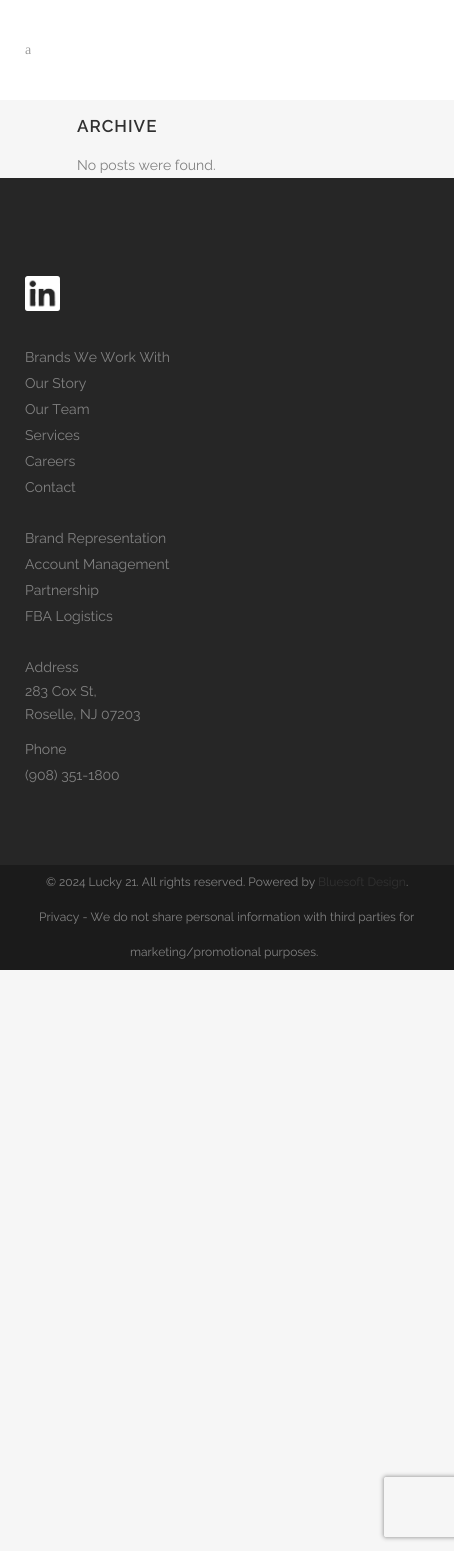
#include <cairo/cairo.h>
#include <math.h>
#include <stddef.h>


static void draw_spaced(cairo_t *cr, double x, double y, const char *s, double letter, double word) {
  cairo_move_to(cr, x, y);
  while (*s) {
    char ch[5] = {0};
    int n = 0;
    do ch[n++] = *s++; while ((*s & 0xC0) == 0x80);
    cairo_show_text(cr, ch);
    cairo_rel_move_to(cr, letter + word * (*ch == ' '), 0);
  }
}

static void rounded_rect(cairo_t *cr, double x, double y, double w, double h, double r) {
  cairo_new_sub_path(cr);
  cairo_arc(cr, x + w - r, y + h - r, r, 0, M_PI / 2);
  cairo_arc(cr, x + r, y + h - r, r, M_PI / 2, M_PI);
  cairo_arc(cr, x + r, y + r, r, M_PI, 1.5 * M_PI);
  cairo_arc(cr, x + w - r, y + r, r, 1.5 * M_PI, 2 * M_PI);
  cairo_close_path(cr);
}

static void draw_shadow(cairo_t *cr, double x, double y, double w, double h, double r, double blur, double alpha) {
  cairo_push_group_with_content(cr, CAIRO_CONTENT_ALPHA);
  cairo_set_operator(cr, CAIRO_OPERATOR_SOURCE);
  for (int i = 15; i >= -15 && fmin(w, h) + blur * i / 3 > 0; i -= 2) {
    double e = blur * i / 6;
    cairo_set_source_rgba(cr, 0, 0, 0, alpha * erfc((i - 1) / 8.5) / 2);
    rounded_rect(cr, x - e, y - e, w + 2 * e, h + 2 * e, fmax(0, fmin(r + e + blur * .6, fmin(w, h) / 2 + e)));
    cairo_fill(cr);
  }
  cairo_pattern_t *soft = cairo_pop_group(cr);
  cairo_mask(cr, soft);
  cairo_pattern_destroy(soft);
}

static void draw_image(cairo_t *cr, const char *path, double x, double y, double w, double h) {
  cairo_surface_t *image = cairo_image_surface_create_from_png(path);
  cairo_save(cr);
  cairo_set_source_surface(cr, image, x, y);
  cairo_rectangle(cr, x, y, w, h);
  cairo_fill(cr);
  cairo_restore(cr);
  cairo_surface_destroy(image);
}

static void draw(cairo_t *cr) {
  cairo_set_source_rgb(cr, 246 / 255.0, 246 / 255.0, 246 / 255.0);
  cairo_paint(cr);
  cairo_set_source_rgb(cr, 1, 1, 1);
  cairo_rectangle(cr, 0, 0, 454, 100);
  cairo_fill(cr);
  cairo_set_source_rgb(cr, 38 / 255.0, 38 / 255.0, 38 / 255.0);
  cairo_rectangle(cr, 0, 178, 454, 687);
  cairo_fill(cr);
  draw_image(cr, "images/1.png", 25, 276, 35, 35);
  cairo_set_source_rgb(cr, 27 / 255.0, 27 / 255.0, 27 / 255.0);
  cairo_rectangle(cr, 0, 865, 454, 105);
  cairo_fill(cr);
  cairo_save(cr);
  cairo_set_fill_rule(cr, CAIRO_FILL_RULE_EVEN_ODD);
  cairo_new_path(cr);
  cairo_move_to(cr, 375, 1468);
  cairo_line_to(cr, 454, 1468);
  cairo_line_to(cr, 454, 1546);
  cairo_line_to(cr, 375, 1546);
  cairo_close_path(cr);
  cairo_move_to(cr, 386, 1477);
  cairo_line_to(cr, 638, 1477);
  cairo_curve_to(cr, 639, 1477, 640, 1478, 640, 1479);
  cairo_line_to(cr, 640, 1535);
  cairo_curve_to(cr, 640, 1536, 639, 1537, 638, 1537);
  cairo_line_to(cr, 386, 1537);
  cairo_curve_to(cr, 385, 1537, 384, 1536, 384, 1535);
  cairo_line_to(cr, 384, 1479);
  cairo_curve_to(cr, 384, 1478, 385, 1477, 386, 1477);
  cairo_close_path(cr);
  cairo_clip(cr);
  cairo_set_source_rgb(cr, 128 / 255.0, 128 / 255.0, 128 / 255.0);
  draw_shadow(cr, 384, 1477, 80, 60, 2, 2.5, 1);
  cairo_restore(cr);
  cairo_select_font_face(cr, "Liberation Serif", CAIRO_FONT_SLANT_NORMAL, CAIRO_FONT_WEIGHT_NORMAL);
  cairo_set_font_size(cr, 14);
  cairo_set_source_rgb(cr, 157 / 255.0, 157 / 255.0, 157 / 255.0);
  cairo_move_to(cr, 25, 54);
  cairo_show_text(cr, "a");
  cairo_select_font_face(cr, "Raleway SemiBold", CAIRO_FONT_SLANT_NORMAL, CAIRO_FONT_WEIGHT_NORMAL);
  cairo_set_font_size(cr, 17);
  cairo_set_source_rgb(cr, 48 / 255.0, 48 / 255.0, 48 / 255.0);
  draw_spaced(cr, 77, 132, "ARCHIVE", 1, 0);
  cairo_select_font_face(cr, "Raleway", CAIRO_FONT_SLANT_NORMAL, CAIRO_FONT_WEIGHT_NORMAL);
  cairo_set_font_size(cr, 14);
  cairo_set_source_rgb(cr, 129 / 255.0, 129 / 255.0, 129 / 255.0);
  cairo_move_to(cr, 77, 170);
  cairo_show_text(cr, "No posts were found.");
  cairo_move_to(cr, 25, 362);
  cairo_show_text(cr, "Brands We Work With");
  cairo_move_to(cr, 25, 388);
  cairo_show_text(cr, "Our Story");
  cairo_move_to(cr, 25, 414);
  cairo_show_text(cr, "Our Team");
  cairo_move_to(cr, 25, 440);
  cairo_show_text(cr, "Services");
  cairo_move_to(cr, 25, 466);
  cairo_show_text(cr, "Careers");
  cairo_move_to(cr, 25, 492);
  cairo_show_text(cr, "Contact");
  cairo_move_to(cr, 25, 543);
  cairo_show_text(cr, "Brand Representation");
  cairo_move_to(cr, 25, 569);
  cairo_show_text(cr, "Account Management");
  cairo_move_to(cr, 25, 595);
  cairo_show_text(cr, "Partnership");
  cairo_move_to(cr, 25, 621);
  cairo_show_text(cr, "FBA Logistics");
  cairo_move_to(cr, 25, 672);
  cairo_show_text(cr, "Address");
  cairo_move_to(cr, 25, 696);
  cairo_show_text(cr, "283 Cox St,");
  cairo_move_to(cr, 25, 719);
  cairo_show_text(cr, "Roselle, NJ 07203");
  cairo_move_to(cr, 25, 754);
  cairo_show_text(cr, "Phone");
  cairo_move_to(cr, 25, 780);
  cairo_show_text(cr, "(908) 351-1800");
  cairo_set_font_size(cr, 12);
  cairo_move_to(cr, 46, 886);
  cairo_show_text(cr, "© 2024 Lucky 21. All rights reserved. Powered by");
  cairo_set_source_rgb(cr, 48 / 255.0, 48 / 255.0, 48 / 255.0);
  cairo_move_to(cr, 318, 886);
  cairo_show_text(cr, "Bluesoft Design");
  cairo_set_source_rgb(cr, 129 / 255.0, 129 / 255.0, 129 / 255.0);
  cairo_move_to(cr, 406, 886);
  cairo_show_text(cr, ".");
  cairo_move_to(cr, 39, 921);
  cairo_show_text(cr, "Privacy - We do not share personal information with third parties for");
  cairo_move_to(cr, 130, 956);
  cairo_show_text(cr, "marketing/promotional purposes.");
}

int main(void) {
  cairo_surface_t *surface = cairo_image_surface_create(CAIRO_FORMAT_RGB24, 454, 1551);
  cairo_t *cr = cairo_create(surface);
  cairo_font_options_t *options = cairo_font_options_create();
  cairo_font_options_set_hint_metrics(options, CAIRO_HINT_METRICS_OFF);
  cairo_font_options_set_hint_style(options, CAIRO_HINT_STYLE_NONE);
  cairo_set_font_options(cr, options);
  cairo_set_miter_limit(cr, 4);
  draw(cr);
  cairo_surface_write_to_png(surface, "out.png");
  cairo_font_options_destroy(options);
  cairo_destroy(cr);
  cairo_surface_destroy(surface);
  return 0;
}
